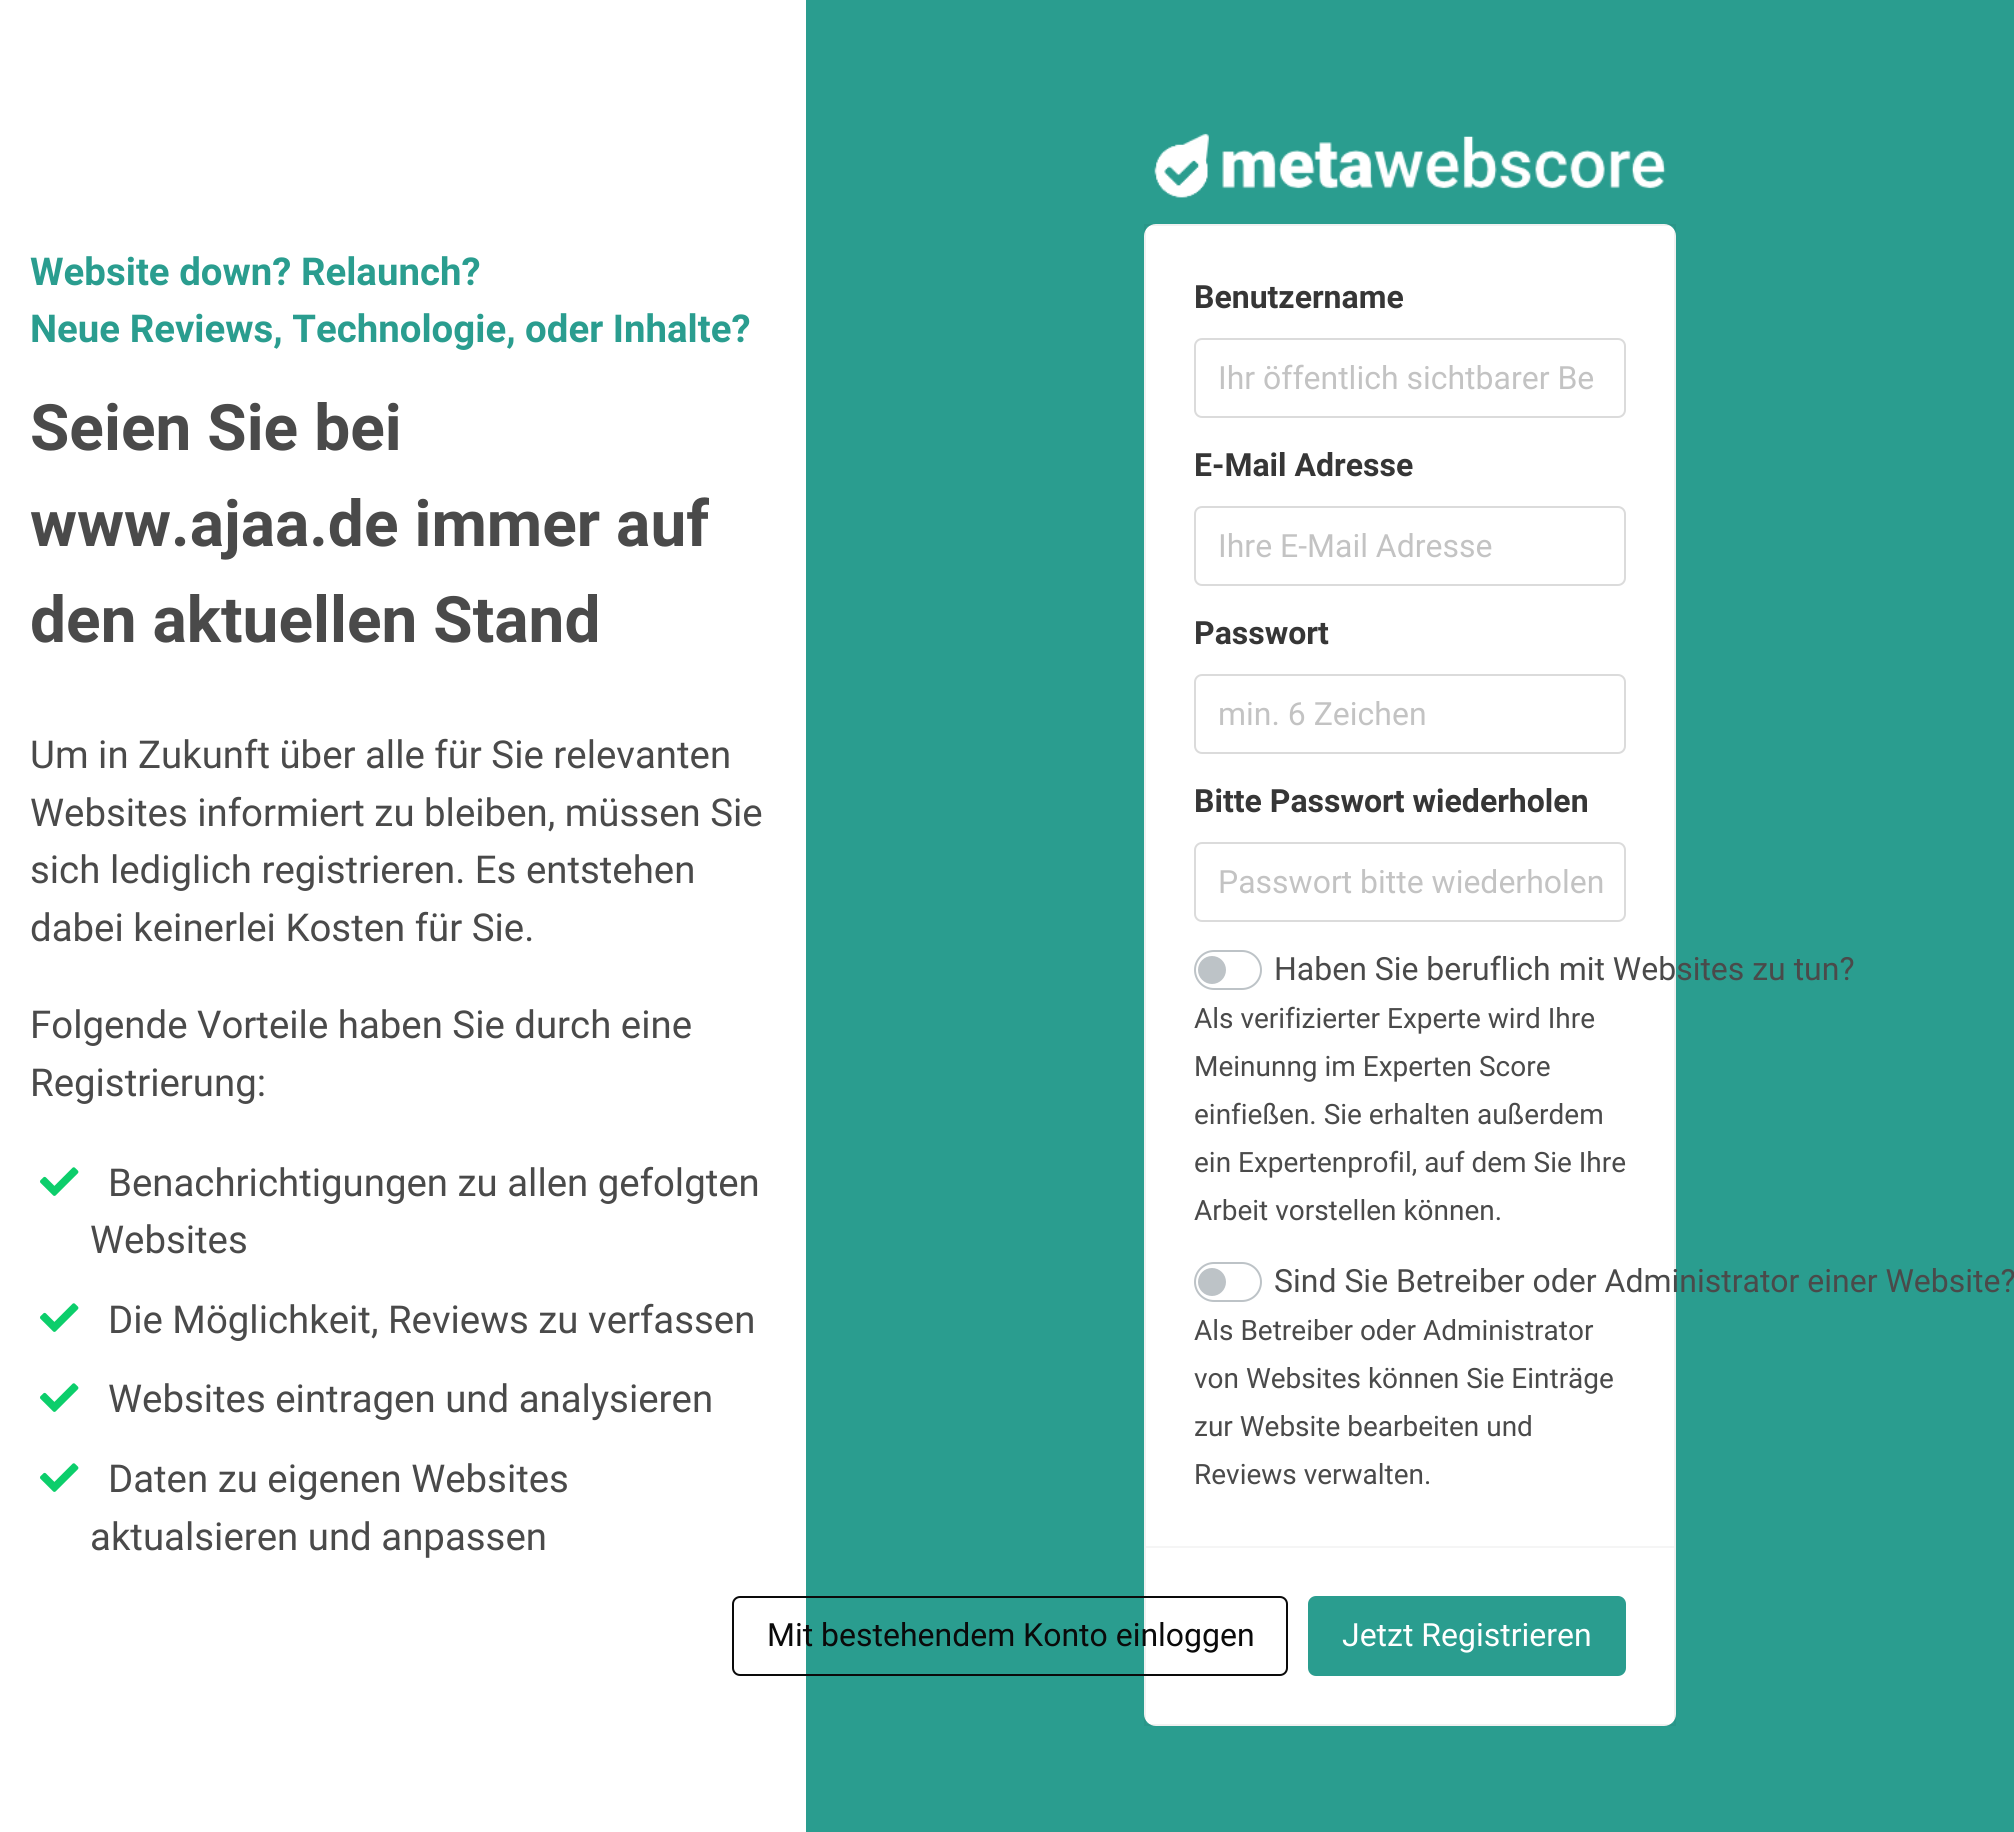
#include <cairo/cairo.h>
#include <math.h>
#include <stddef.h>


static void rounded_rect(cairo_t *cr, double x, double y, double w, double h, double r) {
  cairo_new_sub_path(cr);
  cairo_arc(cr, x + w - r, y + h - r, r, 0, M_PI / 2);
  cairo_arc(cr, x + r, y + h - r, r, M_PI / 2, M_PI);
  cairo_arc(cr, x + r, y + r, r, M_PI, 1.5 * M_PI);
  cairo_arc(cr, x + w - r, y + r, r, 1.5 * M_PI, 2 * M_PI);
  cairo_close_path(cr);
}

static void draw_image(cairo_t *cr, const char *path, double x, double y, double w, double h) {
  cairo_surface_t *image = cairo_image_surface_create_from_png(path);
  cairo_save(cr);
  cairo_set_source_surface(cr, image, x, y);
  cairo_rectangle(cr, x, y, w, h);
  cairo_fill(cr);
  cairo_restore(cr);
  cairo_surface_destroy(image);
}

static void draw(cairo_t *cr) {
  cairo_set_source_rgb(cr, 1, 1, 1);
  cairo_paint(cr);
  draw_image(cr, "images/1.png", 40, 1167, 39, 29);
  draw_image(cr, "images/1.png", 40, 1303, 39, 29);
  draw_image(cr, "images/1.png", 40, 1383, 39, 29);
  draw_image(cr, "images/1.png", 40, 1463, 39, 29);
  cairo_set_source_rgb(cr, 42 / 255.0, 157 / 255.0, 143 / 255.0);
  cairo_rectangle(cr, 806, 0, 1208, 1832);
  cairo_fill(cr);
  draw_image(cr, "images/2.png", 1154, 133, 512, 65);
  cairo_set_source_rgb(cr, 1, 1, 1);
  rounded_rect(cr, 1144, 224, 532, 1502, 12);
  cairo_fill(cr);
  cairo_rectangle(cr, 1145, 225, 530, 1500);
  cairo_set_source_rgba(cr, 24 / 255.0, 28 / 255.0, 33 / 255.0, 0.06);
  cairo_stroke(cr);
  rounded_rect(cr, 1195, 339, 430, 78, 7);
  cairo_set_source_rgb(cr, 219 / 255.0, 219 / 255.0, 219 / 255.0);
  cairo_stroke(cr);
  rounded_rect(cr, 1195, 507, 430, 78, 7);
  cairo_stroke(cr);
  rounded_rect(cr, 1195, 675, 430, 78, 7);
  cairo_stroke(cr);
  rounded_rect(cr, 1195, 843, 430, 78, 7);
  cairo_stroke(cr);
  rounded_rect(cr, 1195, 951, 66, 38, 19);
  cairo_set_source_rgb(cr, 189 / 255.0, 195 / 255.0, 199 / 255.0);
  cairo_stroke(cr);
  cairo_arc(cr, 1212, 970, 14, 0, 2 * M_PI);
  cairo_fill(cr);
  rounded_rect(cr, 1195, 1263, 66, 38, 19);
  cairo_stroke(cr);
  cairo_arc(cr, 1212, 1282, 14, 0, 2 * M_PI);
  cairo_fill(cr);
  cairo_set_source_rgb(cr, 245 / 255.0, 245 / 255.0, 245 / 255.0);
  cairo_rectangle(cr, 1146, 1546, 528, 2);
  cairo_fill(cr);
  rounded_rect(cr, 733, 1597, 554, 78, 7);
  cairo_set_source_rgb(cr, 10 / 255.0, 10 / 255.0, 10 / 255.0);
  cairo_stroke(cr);
  cairo_set_source_rgb(cr, 42 / 255.0, 157 / 255.0, 143 / 255.0);
  rounded_rect(cr, 1308, 1596, 318, 80, 8);
  cairo_fill(cr);
  cairo_select_font_face(cr, "Roboto", CAIRO_FONT_SLANT_NORMAL, CAIRO_FONT_WEIGHT_BOLD);
  cairo_set_font_size(cr, 38.4);
  cairo_move_to(cr, 30, 285);
  cairo_show_text(cr, "Website down? Relaunch?");
  cairo_move_to(cr, 30, 342);
  cairo_show_text(cr, "Neue Reviews, Technologie, oder Inhalte?");
  cairo_set_font_size(cr, 64);
  cairo_set_source_rgb(cr, 74 / 255.0, 74 / 255.0, 74 / 255.0);
  cairo_move_to(cr, 30, 450);
  cairo_show_text(cr, "Seien Sie bei");
  cairo_move_to(cr, 30, 546);
  cairo_show_text(cr, "www.ajaa.de immer auf");
  cairo_move_to(cr, 30, 642);
  cairo_show_text(cr, "den aktuellen Stand");
  cairo_select_font_face(cr, "Roboto", CAIRO_FONT_SLANT_NORMAL, CAIRO_FONT_WEIGHT_NORMAL);
  cairo_set_font_size(cr, 38.4);
  cairo_move_to(cr, 30, 768);
  cairo_show_text(cr, "Um in Zukunft über alle für Sie relevanten");
  cairo_move_to(cr, 30, 826);
  cairo_show_text(cr, "Websites informiert zu bleiben, müssen Sie");
  cairo_move_to(cr, 30, 883);
  cairo_show_text(cr, "sich lediglich registrieren. Es entstehen");
  cairo_move_to(cr, 30, 941);
  cairo_show_text(cr, "dabei keinerlei Kosten für Sie.");
  cairo_move_to(cr, 30, 1038);
  cairo_show_text(cr, "Folgende Vorteile haben Sie durch eine");
  cairo_move_to(cr, 30, 1096);
  cairo_show_text(cr, "Registrierung:");
  cairo_move_to(cr, 108, 1196);
  cairo_show_text(cr, "Benachrichtigungen zu allen gefolgten");
  cairo_move_to(cr, 90, 1253);
  cairo_show_text(cr, "Websites");
  cairo_move_to(cr, 108, 1333);
  cairo_show_text(cr, "Die Möglichkeit, Reviews zu verfassen");
  cairo_move_to(cr, 108, 1412);
  cairo_show_text(cr, "Websites eintragen und analysieren");
  cairo_move_to(cr, 108, 1492);
  cairo_show_text(cr, "Daten zu eigenen Websites");
  cairo_move_to(cr, 90, 1550);
  cairo_show_text(cr, "aktualsieren und anpassen");
  cairo_select_font_face(cr, "Roboto", CAIRO_FONT_SLANT_NORMAL, CAIRO_FONT_WEIGHT_BOLD);
  cairo_set_font_size(cr, 32);
  cairo_set_source_rgb(cr, 54 / 255.0, 54 / 255.0, 54 / 255.0);
  cairo_move_to(cr, 1194, 308);
  cairo_show_text(cr, "Benutzername");
  cairo_select_font_face(cr, "Roboto", CAIRO_FONT_SLANT_NORMAL, CAIRO_FONT_WEIGHT_NORMAL);
  cairo_set_source_rgb(cr, 195 / 255.0, 195 / 255.0, 195 / 255.0);
  cairo_move_to(cr, 1218, 389);
  cairo_show_text(cr, "Ihr öffentlich sichtbarer Be");
  cairo_select_font_face(cr, "Roboto", CAIRO_FONT_SLANT_NORMAL, CAIRO_FONT_WEIGHT_BOLD);
  cairo_set_source_rgb(cr, 54 / 255.0, 54 / 255.0, 54 / 255.0);
  cairo_move_to(cr, 1194, 476);
  cairo_show_text(cr, "E-Mail Adresse");
  cairo_select_font_face(cr, "Roboto", CAIRO_FONT_SLANT_NORMAL, CAIRO_FONT_WEIGHT_NORMAL);
  cairo_set_source_rgb(cr, 195 / 255.0, 195 / 255.0, 195 / 255.0);
  cairo_move_to(cr, 1218, 557);
  cairo_show_text(cr, "Ihre E-Mail Adresse");
  cairo_select_font_face(cr, "Roboto", CAIRO_FONT_SLANT_NORMAL, CAIRO_FONT_WEIGHT_BOLD);
  cairo_set_source_rgb(cr, 54 / 255.0, 54 / 255.0, 54 / 255.0);
  cairo_move_to(cr, 1194, 644);
  cairo_show_text(cr, "Passwort");
  cairo_select_font_face(cr, "Roboto", CAIRO_FONT_SLANT_NORMAL, CAIRO_FONT_WEIGHT_NORMAL);
  cairo_set_source_rgb(cr, 195 / 255.0, 195 / 255.0, 195 / 255.0);
  cairo_move_to(cr, 1218, 725);
  cairo_show_text(cr, "min. 6 Zeichen");
  cairo_select_font_face(cr, "Roboto", CAIRO_FONT_SLANT_NORMAL, CAIRO_FONT_WEIGHT_BOLD);
  cairo_set_source_rgb(cr, 54 / 255.0, 54 / 255.0, 54 / 255.0);
  cairo_move_to(cr, 1194, 812);
  cairo_show_text(cr, "Bitte Passwort wiederholen");
  cairo_select_font_face(cr, "Roboto", CAIRO_FONT_SLANT_NORMAL, CAIRO_FONT_WEIGHT_NORMAL);
  cairo_set_source_rgb(cr, 195 / 255.0, 195 / 255.0, 195 / 255.0);
  cairo_move_to(cr, 1218, 893);
  cairo_show_text(cr, "Passwort bitte wiederholen");
  cairo_set_source_rgb(cr, 74 / 255.0, 74 / 255.0, 74 / 255.0);
  cairo_move_to(cr, 1274, 980);
  cairo_show_text(cr, "Haben Sie beruflich mit Websites zu tun?");
  cairo_set_font_size(cr, 28);
  cairo_move_to(cr, 1194, 1028);
  cairo_show_text(cr, "Als verifizierter Experte wird Ihre");
  cairo_move_to(cr, 1194, 1076);
  cairo_show_text(cr, "Meinunng im Experten Score");
  cairo_move_to(cr, 1194, 1124);
  cairo_show_text(cr, "einfießen. Sie erhalten außerdem");
  cairo_move_to(cr, 1194, 1172);
  cairo_show_text(cr, "ein Expertenprofil, auf dem Sie Ihre");
  cairo_move_to(cr, 1194, 1220);
  cairo_show_text(cr, "Arbeit vorstellen können.");
  cairo_set_font_size(cr, 32);
  cairo_move_to(cr, 1274, 1292);
  cairo_show_text(cr, "Sind Sie Betreiber oder Administrator einer Website?");
  cairo_set_font_size(cr, 28);
  cairo_move_to(cr, 1194, 1340);
  cairo_show_text(cr, "Als Betreiber oder Administrator");
  cairo_move_to(cr, 1194, 1388);
  cairo_show_text(cr, "von Websites können Sie Einträge");
  cairo_move_to(cr, 1194, 1436);
  cairo_show_text(cr, "zur Website bearbeiten und");
  cairo_move_to(cr, 1194, 1484);
  cairo_show_text(cr, "Reviews verwalten.");
  cairo_set_font_size(cr, 32);
  cairo_set_source_rgb(cr, 10 / 255.0, 10 / 255.0, 10 / 255.0);
  cairo_move_to(cr, 767, 1646);
  cairo_show_text(cr, "Mit bestehendem Konto einloggen");
  cairo_set_source_rgb(cr, 1, 1, 1);
  cairo_move_to(cr, 1342, 1646);
  cairo_show_text(cr, "Jetzt Registrieren");
}

int main(void) {
  cairo_surface_t *surface = cairo_image_surface_create(CAIRO_FORMAT_RGB24, 2014, 1832);
  cairo_t *cr = cairo_create(surface);
  cairo_font_options_t *options = cairo_font_options_create();
  cairo_font_options_set_hint_metrics(options, CAIRO_HINT_METRICS_OFF);
  cairo_font_options_set_hint_style(options, CAIRO_HINT_STYLE_NONE);
  cairo_set_font_options(cr, options);
  cairo_set_miter_limit(cr, 4);
  draw(cr);
  cairo_surface_write_to_png(surface, "out.png");
  cairo_font_options_destroy(options);
  cairo_destroy(cr);
  cairo_surface_destroy(surface);
  return 0;
}
